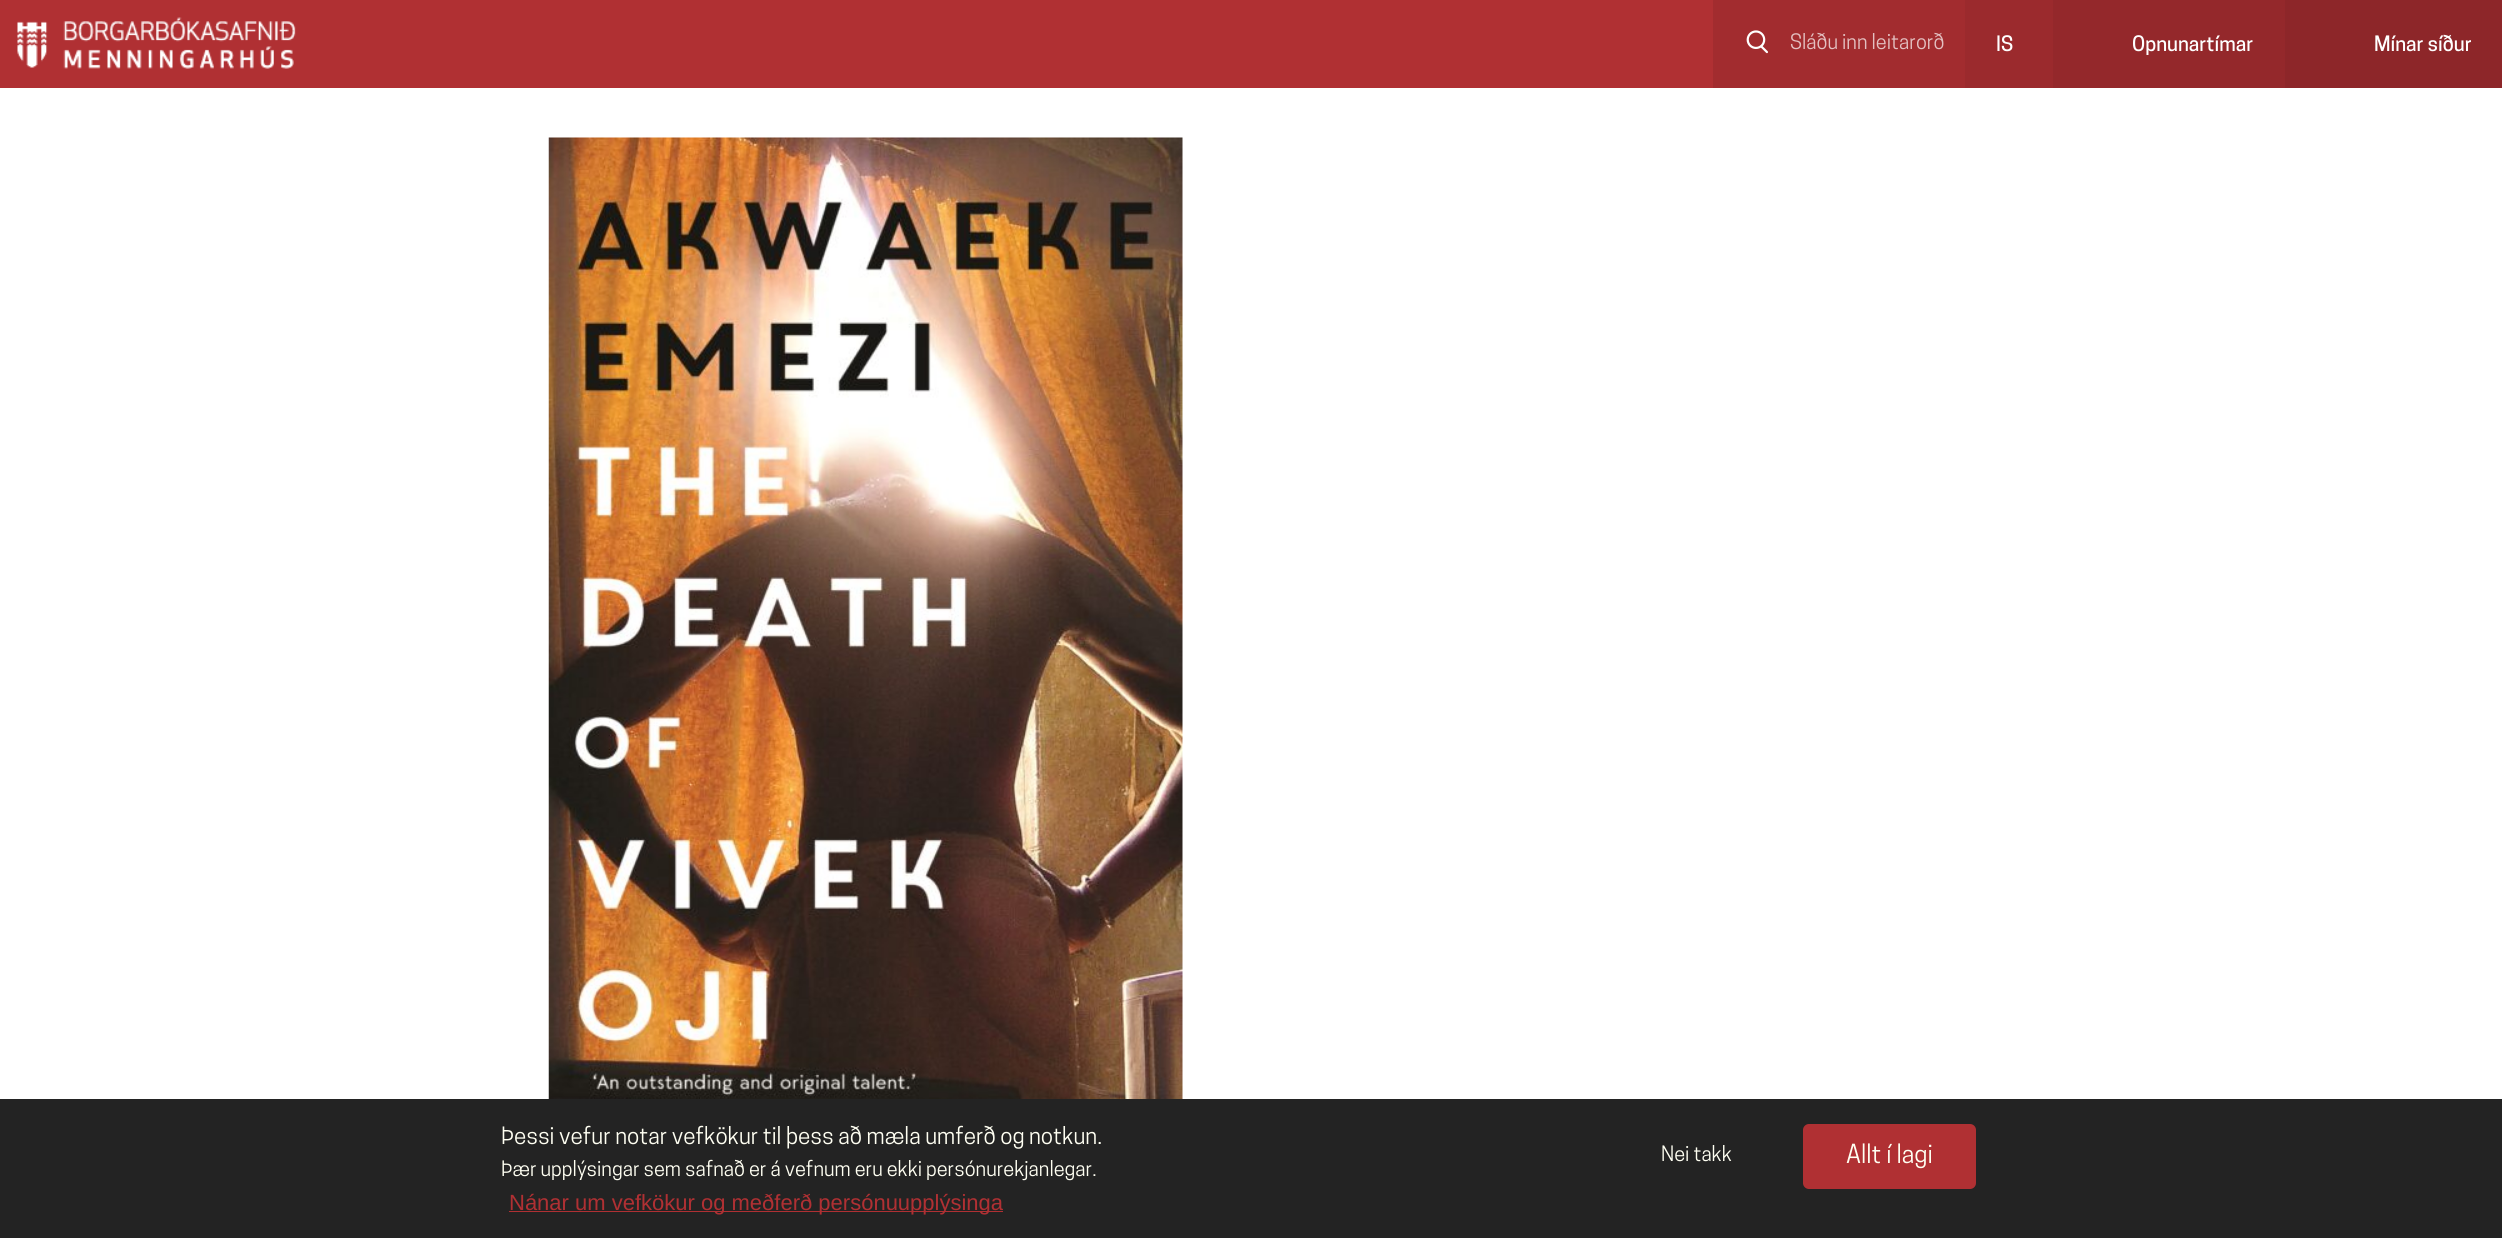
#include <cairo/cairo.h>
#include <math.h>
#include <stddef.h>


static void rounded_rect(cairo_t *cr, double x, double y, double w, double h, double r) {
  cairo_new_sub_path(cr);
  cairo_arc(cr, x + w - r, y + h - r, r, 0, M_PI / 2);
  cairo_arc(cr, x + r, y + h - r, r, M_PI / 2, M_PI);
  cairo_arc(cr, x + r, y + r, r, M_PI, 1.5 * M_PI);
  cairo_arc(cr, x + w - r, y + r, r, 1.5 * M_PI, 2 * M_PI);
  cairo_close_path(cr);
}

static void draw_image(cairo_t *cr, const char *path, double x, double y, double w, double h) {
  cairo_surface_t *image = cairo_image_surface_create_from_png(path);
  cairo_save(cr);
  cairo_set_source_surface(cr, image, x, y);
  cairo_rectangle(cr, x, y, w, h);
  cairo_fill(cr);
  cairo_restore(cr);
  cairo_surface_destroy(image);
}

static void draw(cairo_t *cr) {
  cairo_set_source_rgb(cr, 1, 1, 1);
  cairo_paint(cr);
  cairo_set_source_rgb(cr, 176 / 255.0, 48 / 255.0, 51 / 255.0);
  cairo_rectangle(cr, 0, 0, 1713, 88);
  cairo_fill(cr);
  draw_image(cr, "images/1.png", 17, 21, 31, 47);
  draw_image(cr, "images/2.png", 63, 17, 233, 52);
  cairo_set_source_rgb(cr, 162 / 255.0, 44 / 255.0, 47 / 255.0);
  cairo_rectangle(cr, 1713, 0, 252, 88);
  cairo_fill(cr);
  draw_image(cr, "images/3.png", 1746, 30, 22, 24);
  cairo_set_source_rgb(cr, 155 / 255.0, 42 / 255.0, 45 / 255.0);
  cairo_rectangle(cr, 1965, 0, 88, 88);
  cairo_fill(cr);
  cairo_set_source_rgb(cr, 148 / 255.0, 40 / 255.0, 43 / 255.0);
  cairo_rectangle(cr, 2053, 0, 232, 88);
  cairo_fill(cr);
  cairo_set_source_rgb(cr, 141 / 255.0, 38 / 255.0, 41 / 255.0);
  cairo_rectangle(cr, 2285, 0, 217, 88);
  cairo_fill(cr);
  draw_image(cr, "images/4.png", 548, 137, 635, 962);
  cairo_set_source_rgb(cr, 35 / 255.0, 35 / 255.0, 35 / 255.0);
  cairo_rectangle(cr, 0, 1099, 2502, 139);
  cairo_fill(cr);
  cairo_set_source_rgb(cr, 176 / 255.0, 48 / 255.0, 51 / 255.0);
  cairo_rectangle(cr, 509, 1211, 494, 1);
  cairo_fill(cr);
  rounded_rect(cr, 1803, 1124, 173, 65, 6);
  cairo_fill(cr);
  cairo_select_font_face(cr, "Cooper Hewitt", CAIRO_FONT_SLANT_NORMAL, CAIRO_FONT_WEIGHT_NORMAL);
  cairo_set_font_size(cr, 20);
  cairo_set_source_rgb(cr, 227 / 255.0, 192 / 255.0, 193 / 255.0);
  cairo_move_to(cr, 1790, 49);
  cairo_show_text(cr, "Sláðu inn leitarorð");
  cairo_select_font_face(cr, "Cooper Hewitt Medium", CAIRO_FONT_SLANT_NORMAL, CAIRO_FONT_WEIGHT_NORMAL);
  cairo_set_source_rgb(cr, 1, 1, 1);
  cairo_move_to(cr, 1996, 51);
  cairo_show_text(cr, "IS");
  cairo_move_to(cr, 2132, 51);
  cairo_show_text(cr, "Opnunartímar");
  cairo_move_to(cr, 2374, 51);
  cairo_show_text(cr, "Mínar síður");
  cairo_select_font_face(cr, "Cooper Hewitt", CAIRO_FONT_SLANT_NORMAL, CAIRO_FONT_WEIGHT_NORMAL);
  cairo_set_font_size(cr, 22.5);
  cairo_set_source_rgb(cr, 1, 1, 242 / 255.0);
  cairo_move_to(cr, 501, 1144);
  cairo_show_text(cr, "Þessi vefur notar vefkökur til þess að mæla umferð og notkun.");
  cairo_set_font_size(cr, 20);
  cairo_move_to(cr, 501, 1176);
  cairo_show_text(cr, "Þær upplýsingar sem safnað er á vefnum eru ekki persónurekjanlegar.");
  cairo_select_font_face(cr, "Liberation Sans", CAIRO_FONT_SLANT_NORMAL, CAIRO_FONT_WEIGHT_NORMAL);
  cairo_set_font_size(cr, 22);
  cairo_set_source_rgb(cr, 176 / 255.0, 48 / 255.0, 51 / 255.0);
  cairo_move_to(cr, 509, 1210);
  cairo_show_text(cr, "Nánar um vefkökur og meðferð persónuupplýsinga");
  cairo_select_font_face(cr, "Cooper Hewitt", CAIRO_FONT_SLANT_NORMAL, CAIRO_FONT_WEIGHT_NORMAL);
  cairo_set_font_size(cr, 20);
  cairo_set_source_rgb(cr, 1, 1, 242 / 255.0);
  cairo_move_to(cr, 1661, 1161);
  cairo_show_text(cr, "Nei takk");
  cairo_set_font_size(cr, 24.5);
  cairo_move_to(cr, 1846, 1163);
  cairo_show_text(cr, "Allt í lagi");
}

int main(void) {
  cairo_surface_t *surface = cairo_image_surface_create(CAIRO_FORMAT_RGB24, 2502, 1238);
  cairo_t *cr = cairo_create(surface);
  cairo_font_options_t *options = cairo_font_options_create();
  cairo_font_options_set_hint_metrics(options, CAIRO_HINT_METRICS_OFF);
  cairo_font_options_set_hint_style(options, CAIRO_HINT_STYLE_NONE);
  cairo_set_font_options(cr, options);
  cairo_set_miter_limit(cr, 4);
  draw(cr);
  cairo_surface_write_to_png(surface, "out.png");
  cairo_font_options_destroy(options);
  cairo_destroy(cr);
  cairo_surface_destroy(surface);
  return 0;
}
